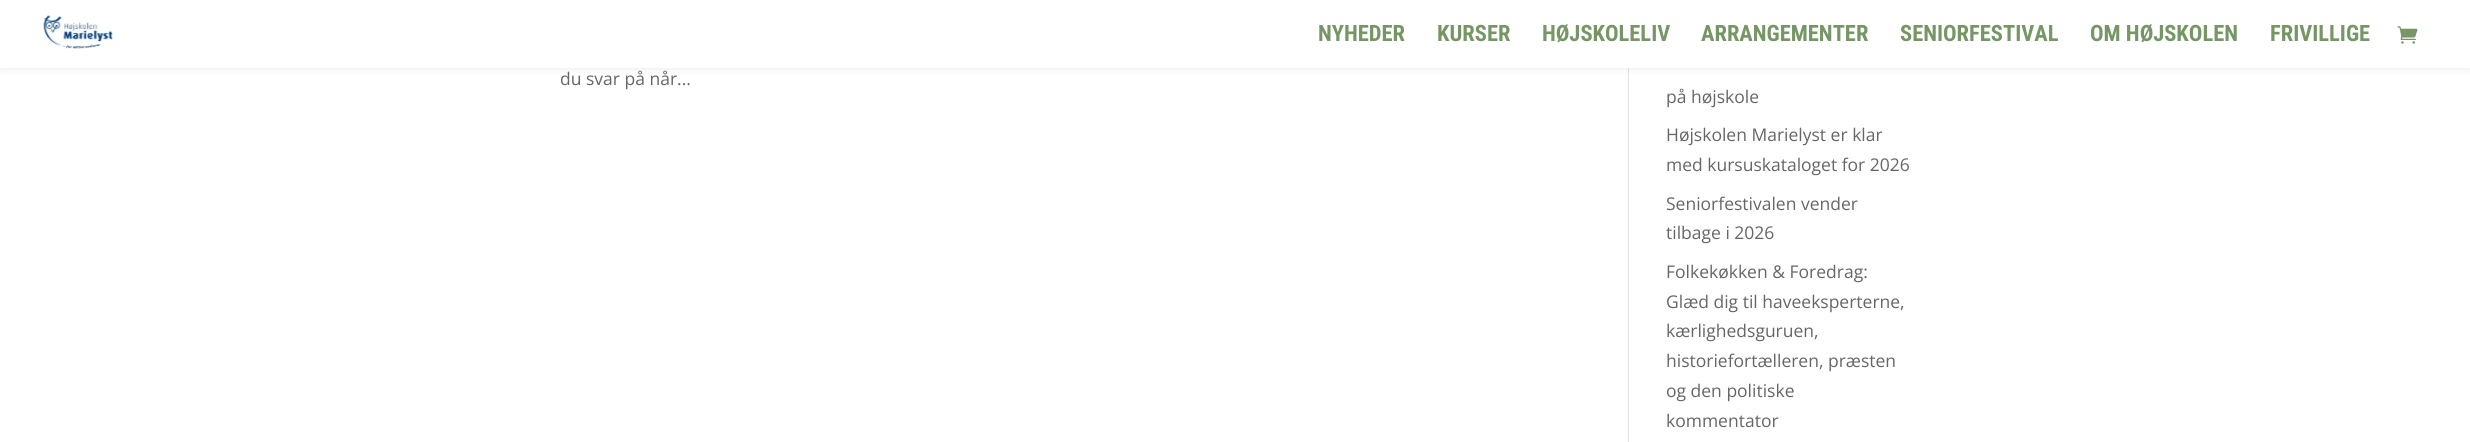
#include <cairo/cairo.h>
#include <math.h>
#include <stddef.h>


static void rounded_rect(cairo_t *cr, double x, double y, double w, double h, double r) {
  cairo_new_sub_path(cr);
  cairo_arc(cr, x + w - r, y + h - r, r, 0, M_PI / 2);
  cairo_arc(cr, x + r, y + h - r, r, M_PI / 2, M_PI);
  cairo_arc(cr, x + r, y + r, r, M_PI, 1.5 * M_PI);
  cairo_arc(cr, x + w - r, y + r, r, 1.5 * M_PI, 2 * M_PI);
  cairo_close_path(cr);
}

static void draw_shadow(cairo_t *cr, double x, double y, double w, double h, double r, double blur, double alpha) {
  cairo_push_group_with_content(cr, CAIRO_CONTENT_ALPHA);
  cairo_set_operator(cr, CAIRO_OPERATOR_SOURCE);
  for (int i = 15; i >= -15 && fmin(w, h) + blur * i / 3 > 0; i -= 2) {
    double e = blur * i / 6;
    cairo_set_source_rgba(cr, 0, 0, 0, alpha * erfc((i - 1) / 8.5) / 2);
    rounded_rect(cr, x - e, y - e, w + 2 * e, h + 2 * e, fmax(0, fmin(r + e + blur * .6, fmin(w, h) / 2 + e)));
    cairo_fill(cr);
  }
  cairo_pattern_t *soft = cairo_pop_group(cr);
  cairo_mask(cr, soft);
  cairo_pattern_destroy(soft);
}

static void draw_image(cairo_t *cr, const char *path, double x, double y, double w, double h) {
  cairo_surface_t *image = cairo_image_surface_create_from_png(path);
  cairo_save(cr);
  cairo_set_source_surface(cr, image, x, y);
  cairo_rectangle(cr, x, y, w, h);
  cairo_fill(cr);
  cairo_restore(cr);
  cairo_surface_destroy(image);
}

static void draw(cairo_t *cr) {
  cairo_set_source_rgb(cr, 1, 1, 1);
  cairo_paint(cr);
  cairo_set_source_rgb(cr, 226 / 255.0, 226 / 255.0, 226 / 255.0);
  cairo_rectangle(cr, 1628, 68, 1, 374);
  cairo_fill(cr);
  cairo_set_source_rgb(cr, 0, 0, 0);
  draw_shadow(cr, 0, 0, 2470, 68, 0, 4.5, 0.1);
  cairo_set_source_rgb(cr, 1, 1, 1);
  cairo_rectangle(cr, 0, 0, 2470, 68);
  cairo_fill(cr);
  draw_image(cr, "images/1.png", 43, 15, 70, 34);
  draw_image(cr, "images/2.png", 2397, 26, 21, 18);
  cairo_select_font_face(cr, "Roboto Condensed", CAIRO_FONT_SLANT_NORMAL, CAIRO_FONT_WEIGHT_BOLD);
  cairo_set_font_size(cr, 22.5);
  cairo_set_source_rgb(cr, 118 / 255.0, 150 / 255.0, 102 / 255.0);
  cairo_move_to(cr, 1318, 41);
  cairo_show_text(cr, "NYHEDER");
  cairo_move_to(cr, 1437, 41);
  cairo_show_text(cr, "KURSER");
  cairo_move_to(cr, 1542, 41);
  cairo_show_text(cr, "HØJSKOLELIV");
  cairo_move_to(cr, 1701, 41);
  cairo_show_text(cr, "ARRANGEMENTER");
  cairo_move_to(cr, 1900, 41);
  cairo_show_text(cr, "SENIORFESTIVAL");
  cairo_move_to(cr, 2090, 41);
  cairo_show_text(cr, "OM HØJSKOLEN");
  cairo_move_to(cr, 2270, 41);
  cairo_show_text(cr, "FRIVILLIGE");
  cairo_select_font_face(cr, "Open Sans", CAIRO_FONT_SLANT_NORMAL, CAIRO_FONT_WEIGHT_NORMAL);
  cairo_set_font_size(cr, 17.5);
  cairo_set_source_rgb(cr, 102 / 255.0, 102 / 255.0, 102 / 255.0);
  cairo_move_to(cr, 560, 85);
  cairo_show_text(cr, "du svar på når...");
  cairo_move_to(cr, 1666, 103);
  cairo_show_text(cr, "på højskole");
  cairo_move_to(cr, 1666, 141);
  cairo_show_text(cr, "Højskolen Marielyst er klar");
  cairo_move_to(cr, 1666, 171);
  cairo_show_text(cr, "med kursuskataloget for 2026");
  cairo_move_to(cr, 1666, 210);
  cairo_show_text(cr, "Seniorfestivalen vender");
  cairo_move_to(cr, 1666, 239);
  cairo_show_text(cr, "tilbage i 2026");
  cairo_move_to(cr, 1666, 278);
  cairo_show_text(cr, "Folkekøkken & Foredrag:");
  cairo_move_to(cr, 1666, 308);
  cairo_show_text(cr, "Glæd dig til haveeksperterne,");
  cairo_move_to(cr, 1666, 337);
  cairo_show_text(cr, "kærlighedsguruen,");
  cairo_move_to(cr, 1666, 367);
  cairo_show_text(cr, "historiefortælleren, præsten");
  cairo_move_to(cr, 1666, 397);
  cairo_show_text(cr, "og den politiske");
  cairo_move_to(cr, 1666, 427);
  cairo_show_text(cr, "kommentator");
}

int main(void) {
  cairo_surface_t *surface = cairo_image_surface_create(CAIRO_FORMAT_RGB24, 2470, 442);
  cairo_t *cr = cairo_create(surface);
  cairo_font_options_t *options = cairo_font_options_create();
  cairo_font_options_set_hint_metrics(options, CAIRO_HINT_METRICS_OFF);
  cairo_font_options_set_hint_style(options, CAIRO_HINT_STYLE_NONE);
  cairo_set_font_options(cr, options);
  cairo_set_miter_limit(cr, 4);
  draw(cr);
  cairo_surface_write_to_png(surface, "out.png");
  cairo_font_options_destroy(options);
  cairo_destroy(cr);
  cairo_surface_destroy(surface);
  return 0;
}
